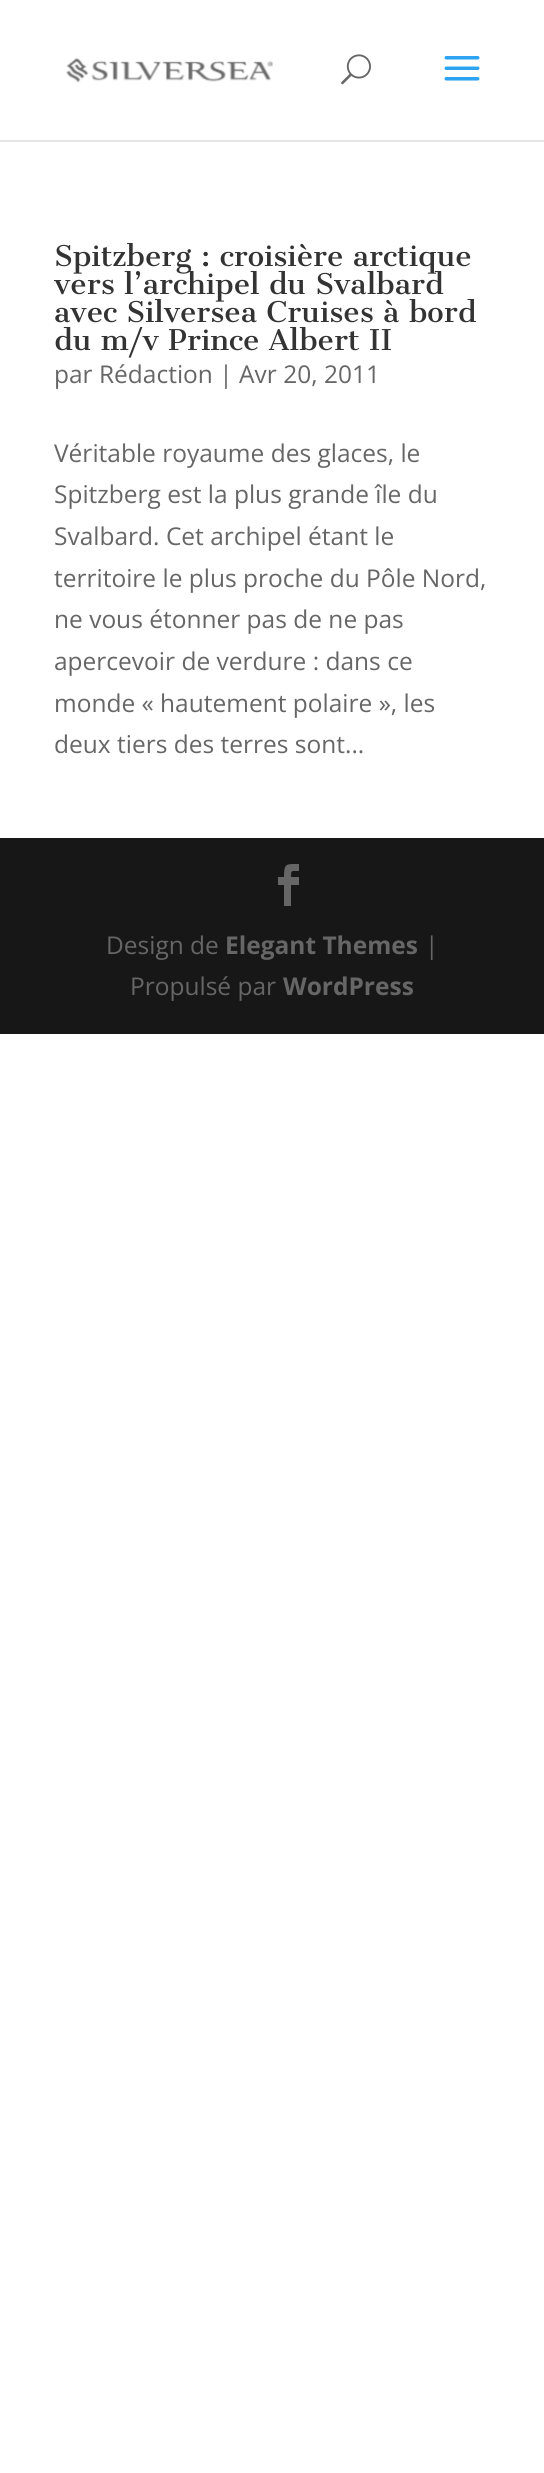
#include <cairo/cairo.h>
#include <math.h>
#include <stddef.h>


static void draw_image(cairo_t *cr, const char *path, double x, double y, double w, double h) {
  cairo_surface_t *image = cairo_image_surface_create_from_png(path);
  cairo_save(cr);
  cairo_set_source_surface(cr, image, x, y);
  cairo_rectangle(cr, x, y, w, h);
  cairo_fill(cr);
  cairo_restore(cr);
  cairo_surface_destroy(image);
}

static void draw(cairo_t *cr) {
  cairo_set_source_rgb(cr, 1, 1, 1);
  cairo_paint(cr);
  cairo_set_source_rgb(cr, 230 / 255.0, 230 / 255.0, 230 / 255.0);
  cairo_rectangle(cr, 0, 140, 544, 2);
  cairo_fill(cr);
  draw_image(cr, "images/1.png", 66, 58, 207, 25);
  draw_image(cr, "images/2.png", 341, 54, 30, 31);
  draw_image(cr, "images/3.png", 444, 56, 36, 25);
  cairo_set_source_rgb(cr, 23 / 255.0, 23 / 255.0, 23 / 255.0);
  cairo_rectangle(cr, 0, 838, 544, 196);
  cairo_fill(cr);
  cairo_set_source_rgb(cr, 102 / 255.0, 102 / 255.0, 102 / 255.0);
  cairo_new_path(cr);
  cairo_move_to(cr, 284, 906);
  cairo_line_to(cr, 291, 906);
  cairo_line_to(cr, 291, 885);
  cairo_line_to(cr, 299, 885);
  cairo_line_to(cr, 299, 877);
  cairo_line_to(cr, 291, 877);
  cairo_curve_to(cr, 291, 870, 291, 871, 299, 871);
  cairo_line_to(cr, 299, 864);
  cairo_curve_to(cr, 286, 864, 284, 863, 284, 877);
  cairo_line_to(cr, 278, 877);
  cairo_line_to(cr, 278, 885);
  cairo_line_to(cr, 284, 885);
  cairo_close_path(cr);
  cairo_fill(cr);
  cairo_select_font_face(cr, "Cantata One", CAIRO_FONT_SLANT_NORMAL, CAIRO_FONT_WEIGHT_NORMAL);
  cairo_set_font_size(cr, 28);
  cairo_set_source_rgb(cr, 51 / 255.0, 51 / 255.0, 51 / 255.0);
  cairo_move_to(cr, 54, 266);
  cairo_show_text(cr, "Spitzberg : croisière arctique");
  cairo_move_to(cr, 54, 294);
  cairo_show_text(cr, "vers l’archipel du Svalbard");
  cairo_move_to(cr, 54, 322);
  cairo_show_text(cr, "avec Silversea Cruises à bord");
  cairo_move_to(cr, 54, 350);
  cairo_show_text(cr, "du m/v Prince Albert II");
  cairo_select_font_face(cr, "Open Sans", CAIRO_FONT_SLANT_NORMAL, CAIRO_FONT_WEIGHT_NORMAL);
  cairo_set_font_size(cr, 24.5);
  cairo_set_source_rgb(cr, 102 / 255.0, 102 / 255.0, 102 / 255.0);
  cairo_move_to(cr, 54, 383);
  cairo_show_text(cr, "par Rédaction | Avr 20, 2011");
  cairo_move_to(cr, 54, 462);
  cairo_show_text(cr, "Véritable royaume des glaces, le");
  cairo_move_to(cr, 54, 503);
  cairo_show_text(cr, "Spitzberg est la plus grande île du");
  cairo_move_to(cr, 54, 545);
  cairo_show_text(cr, "Svalbard. Cet archipel étant le");
  cairo_move_to(cr, 54, 587);
  cairo_show_text(cr, "territoire le plus proche du Pôle Nord,");
  cairo_move_to(cr, 54, 628);
  cairo_show_text(cr, "ne vous étonner pas de ne pas");
  cairo_move_to(cr, 54, 670);
  cairo_show_text(cr, "apercevoir de verdure : dans ce");
  cairo_move_to(cr, 54, 712);
  cairo_show_text(cr, "monde « hautement polaire », les");
  cairo_move_to(cr, 54, 753);
  cairo_show_text(cr, "deux tiers des terres sont...");
  cairo_move_to(cr, 106, 954);
  cairo_show_text(cr, "Design de");
  cairo_select_font_face(cr, "Open Sans", CAIRO_FONT_SLANT_NORMAL, CAIRO_FONT_WEIGHT_BOLD);
  cairo_move_to(cr, 225, 954);
  cairo_show_text(cr, "Elegant Themes");
  cairo_select_font_face(cr, "Open Sans", CAIRO_FONT_SLANT_NORMAL, CAIRO_FONT_WEIGHT_NORMAL);
  cairo_move_to(cr, 425, 954);
  cairo_show_text(cr, "|");
  cairo_move_to(cr, 130, 995);
  cairo_show_text(cr, "Propulsé par");
  cairo_select_font_face(cr, "Open Sans", CAIRO_FONT_SLANT_NORMAL, CAIRO_FONT_WEIGHT_BOLD);
  cairo_move_to(cr, 283, 995);
  cairo_show_text(cr, "WordPress");
}

int main(void) {
  cairo_surface_t *surface = cairo_image_surface_create(CAIRO_FORMAT_RGB24, 544, 2473);
  cairo_t *cr = cairo_create(surface);
  cairo_font_options_t *options = cairo_font_options_create();
  cairo_font_options_set_hint_metrics(options, CAIRO_HINT_METRICS_OFF);
  cairo_font_options_set_hint_style(options, CAIRO_HINT_STYLE_NONE);
  cairo_set_font_options(cr, options);
  cairo_set_miter_limit(cr, 4);
  draw(cr);
  cairo_surface_write_to_png(surface, "out.png");
  cairo_font_options_destroy(options);
  cairo_destroy(cr);
  cairo_surface_destroy(surface);
  return 0;
}
